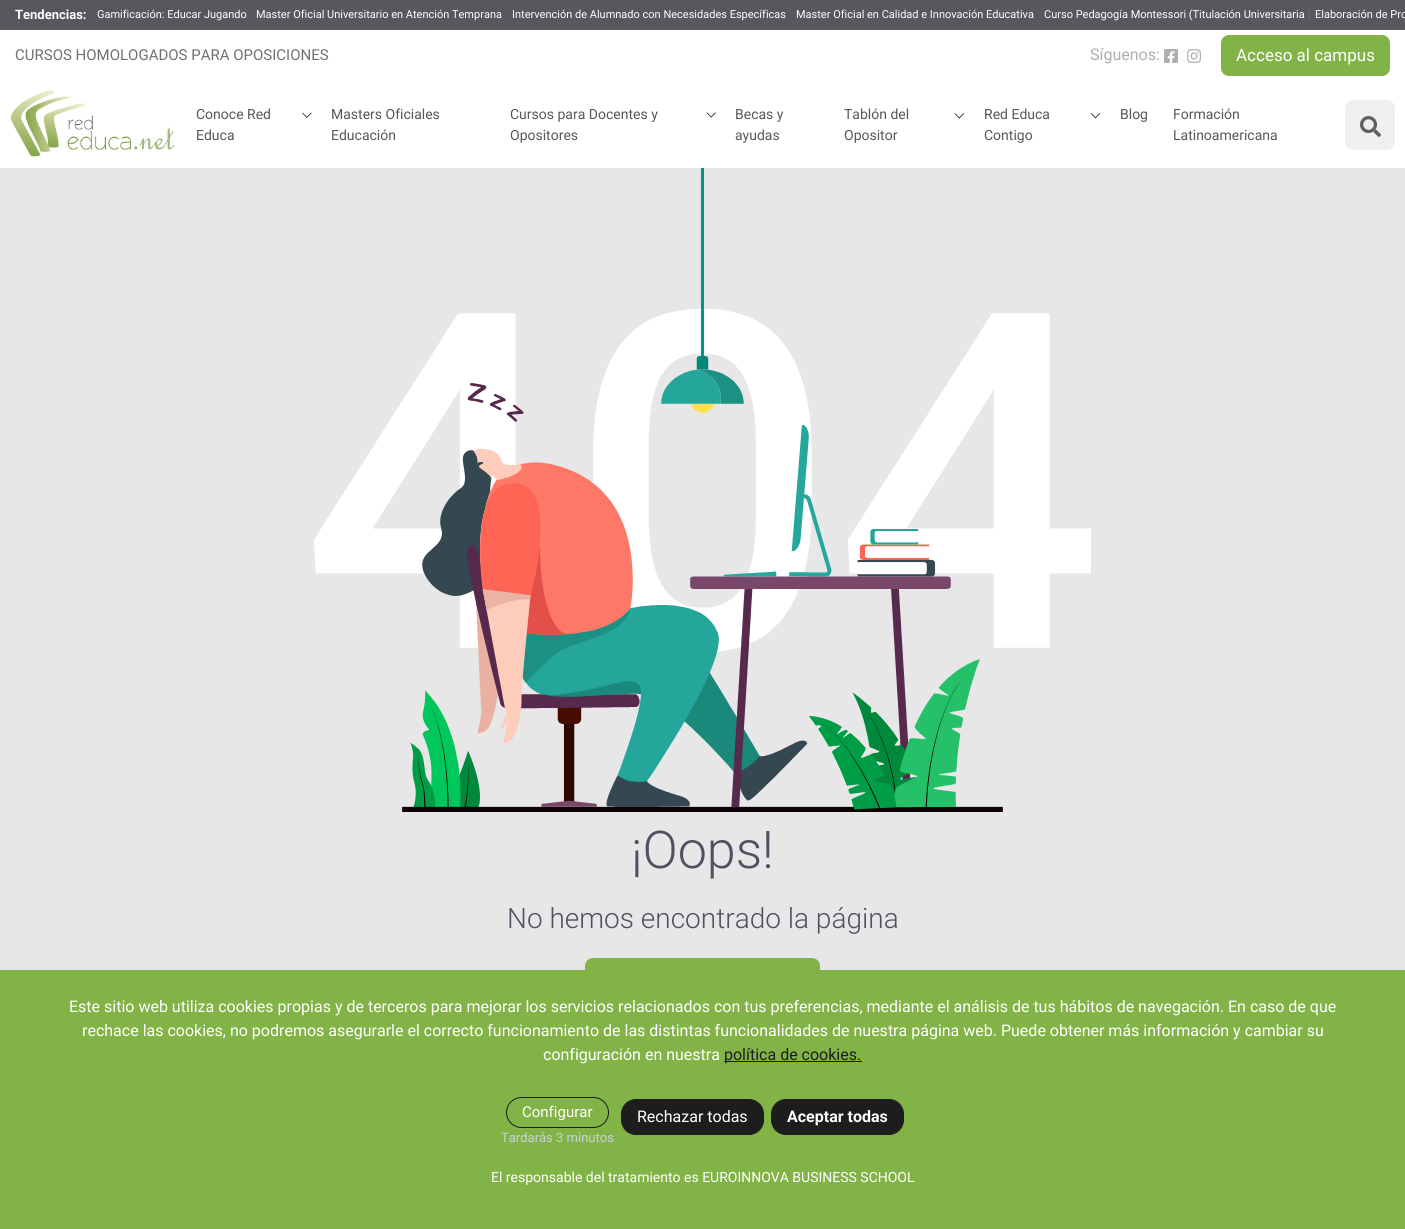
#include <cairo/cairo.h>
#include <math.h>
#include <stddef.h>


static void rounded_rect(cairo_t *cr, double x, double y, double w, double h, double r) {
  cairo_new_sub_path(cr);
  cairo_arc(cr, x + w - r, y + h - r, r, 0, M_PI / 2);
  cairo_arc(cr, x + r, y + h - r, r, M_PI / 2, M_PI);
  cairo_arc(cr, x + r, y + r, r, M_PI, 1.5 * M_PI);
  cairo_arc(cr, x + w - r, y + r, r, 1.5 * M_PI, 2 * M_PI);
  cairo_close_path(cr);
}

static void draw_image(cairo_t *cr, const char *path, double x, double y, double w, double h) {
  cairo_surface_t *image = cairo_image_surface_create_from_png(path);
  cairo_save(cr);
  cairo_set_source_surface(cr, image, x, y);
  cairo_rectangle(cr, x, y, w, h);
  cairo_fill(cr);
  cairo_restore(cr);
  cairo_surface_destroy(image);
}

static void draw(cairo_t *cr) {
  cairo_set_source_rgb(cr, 1, 1, 1);
  cairo_paint(cr);
  cairo_set_source_rgb(cr, 89 / 255.0, 86 / 255.0, 94 / 255.0);
  cairo_rectangle(cr, 0, 0, 1405, 30);
  cairo_fill(cr);
  draw_image(cr, "images/1.png", 1164, 49, 14, 14);
  draw_image(cr, "images/2.png", 1187, 49, 14, 14);
  cairo_set_source_rgb(cr, 130 / 255.0, 179 / 255.0, 71 / 255.0);
  rounded_rect(cr, 1221, 35, 169, 41, 8);
  cairo_fill(cr);
  draw_image(cr, "images/3.png", 10, 90, 165, 67);
  draw_image(cr, "images/4.png", 302, 112, 10, 6);
  draw_image(cr, "images/5.png", 706, 112, 10, 6);
  draw_image(cr, "images/6.png", 954, 113, 10, 6);
  draw_image(cr, "images/7.png", 1090, 113, 11, 6);
  cairo_set_source_rgb(cr, 239 / 255.0, 239 / 255.0, 239 / 255.0);
  rounded_rect(cr, 1345, 100, 50, 50, 8);
  cairo_fill(cr);
  draw_image(cr, "images/8.png", 1360, 116, 21, 21);
  cairo_set_source_rgb(cr, 231 / 255.0, 231 / 255.0, 231 / 255.0);
  cairo_rectangle(cr, 0, 168, 1405, 802);
  cairo_fill(cr);
  draw_image(cr, "images/9.png", 314, 168, 777, 644);
  cairo_set_source_rgb(cr, 130 / 255.0, 179 / 255.0, 71 / 255.0);
  rounded_rect(cr, 585, 958, 235, 44, 8);
  cairo_fill(cr);
  cairo_rectangle(cr, 0, 970, 1405, 259);
  cairo_fill(cr);
  cairo_set_source_rgb(cr, 29 / 255.0, 29 / 255.0, 29 / 255.0);
  cairo_rectangle(cr, 724, 1061, 138, 1);
  cairo_fill(cr);
  rounded_rect(cr, 506.5, 1097.5, 102, 30, 15);
  cairo_set_line_width(cr, 1);
  cairo_stroke(cr);
  rounded_rect(cr, 621.5, 1099.5, 142, 35, 14.5);
  cairo_fill_preserve(cr);
  cairo_stroke(cr);
  rounded_rect(cr, 771.5, 1099.5, 132, 35, 14.5);
  cairo_fill_preserve(cr);
  cairo_stroke(cr);
  cairo_select_font_face(cr, "Roboto", CAIRO_FONT_SLANT_NORMAL, CAIRO_FONT_WEIGHT_BOLD);
  cairo_set_font_size(cr, 13);
  cairo_set_source_rgb(cr, 1, 1, 1);
  cairo_move_to(cr, 15, 19);
  cairo_show_text(cr, "Tendencias:");
  cairo_select_font_face(cr, "Roboto", CAIRO_FONT_SLANT_NORMAL, CAIRO_FONT_WEIGHT_NORMAL);
  cairo_set_font_size(cr, 11);
  cairo_move_to(cr, 97, 18);
  cairo_show_text(cr, "Gamificación: Educar Jugando");
  cairo_move_to(cr, 256, 18);
  cairo_show_text(cr, "Master Oficial Universitario en Atención Temprana");
  cairo_move_to(cr, 512, 18);
  cairo_show_text(cr, "Intervención de Alumnado con Necesidades Específicas");
  cairo_move_to(cr, 796, 18);
  cairo_show_text(cr, "Master Oficial en Calidad e Innovación Educativa");
  cairo_move_to(cr, 1044, 18);
  cairo_show_text(cr, "Curso Pedagogía Montessori (Titulación Universitaria");
  cairo_set_source_rgb(cr, 112 / 255.0, 112 / 255.0, 112 / 255.0);
  cairo_move_to(cr, 1308, 18);
  cairo_show_text(cr, "|");
  cairo_set_source_rgb(cr, 1, 1, 1);
  cairo_move_to(cr, 1315, 18);
  cairo_show_text(cr, "Elaboración de Pro");
  cairo_set_font_size(cr, 15);
  cairo_set_source_rgb(cr, 112 / 255.0, 112 / 255.0, 112 / 255.0);
  cairo_move_to(cr, 15, 60);
  cairo_show_text(cr, "CURSOS HOMOLOGADOS PARA OPOSICIONES");
  cairo_set_font_size(cr, 16);
  cairo_set_source_rgb(cr, 175 / 255.0, 175 / 255.0, 175 / 255.0);
  cairo_move_to(cr, 1090, 60);
  cairo_show_text(cr, "Síguenos:");
  cairo_set_font_size(cr, 17);
  cairo_set_source_rgb(cr, 1, 1, 1);
  cairo_move_to(cr, 1236, 61);
  cairo_show_text(cr, "Acceso al campus");
  cairo_set_font_size(cr, 14);
  cairo_set_source_rgb(cr, 87 / 255.0, 87 / 255.0, 87 / 255.0);
  cairo_move_to(cr, 196, 119);
  cairo_show_text(cr, "Conoce Red");
  cairo_move_to(cr, 196, 140);
  cairo_show_text(cr, "Educa");
  cairo_move_to(cr, 331, 119);
  cairo_show_text(cr, "Masters Oficiales");
  cairo_move_to(cr, 331, 140);
  cairo_show_text(cr, "Educación");
  cairo_move_to(cr, 510, 119);
  cairo_show_text(cr, "Cursos para Docentes y");
  cairo_move_to(cr, 510, 140);
  cairo_show_text(cr, "Opositores");
  cairo_move_to(cr, 735, 119);
  cairo_show_text(cr, "Becas y");
  cairo_move_to(cr, 735, 140);
  cairo_show_text(cr, "ayudas");
  cairo_move_to(cr, 844, 119);
  cairo_show_text(cr, "Tablón del");
  cairo_move_to(cr, 844, 140);
  cairo_show_text(cr, "Opositor");
  cairo_move_to(cr, 984, 119);
  cairo_show_text(cr, "Red Educa");
  cairo_move_to(cr, 984, 140);
  cairo_show_text(cr, "Contigo");
  cairo_move_to(cr, 1120, 119);
  cairo_show_text(cr, "Blog");
  cairo_move_to(cr, 1173, 119);
  cairo_show_text(cr, "Formación");
  cairo_move_to(cr, 1173, 140);
  cairo_show_text(cr, "Latinoamericana");
  cairo_select_font_face(cr, "Roboto Light", CAIRO_FONT_SLANT_NORMAL, CAIRO_FONT_WEIGHT_NORMAL);
  cairo_set_font_size(cr, 52);
  cairo_set_source_rgb(cr, 84 / 255.0, 78 / 255.0, 97 / 255.0);
  cairo_move_to(cr, 631, 868);
  cairo_show_text(cr, "¡Oops!");
  cairo_set_font_size(cr, 28);
  cairo_move_to(cr, 507, 928);
  cairo_show_text(cr, "No hemos encontrado la página");
  cairo_select_font_face(cr, "Roboto", CAIRO_FONT_SLANT_NORMAL, CAIRO_FONT_WEIGHT_NORMAL);
  cairo_set_font_size(cr, 16);
  cairo_set_source_rgb(cr, 1, 1, 1);
  cairo_move_to(cr, 69, 1012);
  cairo_show_text(cr, "Este sitio web utiliza cookies propias y de terceros para mejorar los servicios relacionados con tus preferencias, mediante el análisis de tus hábitos de navegación. En caso de que");
  cairo_move_to(cr, 82, 1036);
  cairo_show_text(cr, "rechace las cookies, no podremos asegurarle el correcto funcionamiento de las distintas funcionalidades de nuestra página web. Puede obtener más información y cambiar su");
  cairo_move_to(cr, 543, 1060);
  cairo_show_text(cr, "configuración en nuestra");
  cairo_set_source_rgb(cr, 29 / 255.0, 29 / 255.0, 29 / 255.0);
  cairo_move_to(cr, 724, 1060);
  cairo_show_text(cr, "política de cookies.");
  cairo_set_font_size(cr, 15);
  cairo_set_source_rgb(cr, 1, 1, 1);
  cairo_move_to(cr, 522, 1117);
  cairo_show_text(cr, "Configurar");
  cairo_set_font_size(cr, 13);
  cairo_set_source_rgb(cr, 200 / 255.0, 209 / 255.0, 220 / 255.0);
  cairo_move_to(cr, 501, 1142);
  cairo_show_text(cr, "Tardarás 3 minutos");
  cairo_set_font_size(cr, 16);
  cairo_set_source_rgb(cr, 1, 1, 1);
  cairo_move_to(cr, 637, 1122);
  cairo_show_text(cr, "Rechazar todas");
  cairo_select_font_face(cr, "Roboto", CAIRO_FONT_SLANT_NORMAL, CAIRO_FONT_WEIGHT_BOLD);
  cairo_move_to(cr, 787, 1122);
  cairo_show_text(cr, "Aceptar todas");
  cairo_select_font_face(cr, "Roboto", CAIRO_FONT_SLANT_NORMAL, CAIRO_FONT_WEIGHT_NORMAL);
  cairo_set_font_size(cr, 14);
  cairo_move_to(cr, 491, 1182);
  cairo_show_text(cr, "El responsable del tratamiento es EUROINNOVA BUSINESS SCHOOL");
}

int main(void) {
  cairo_surface_t *surface = cairo_image_surface_create(CAIRO_FORMAT_RGB24, 1405, 1229);
  cairo_t *cr = cairo_create(surface);
  cairo_font_options_t *options = cairo_font_options_create();
  cairo_font_options_set_hint_metrics(options, CAIRO_HINT_METRICS_OFF);
  cairo_font_options_set_hint_style(options, CAIRO_HINT_STYLE_NONE);
  cairo_set_font_options(cr, options);
  cairo_set_miter_limit(cr, 4);
  draw(cr);
  cairo_surface_write_to_png(surface, "out.png");
  cairo_font_options_destroy(options);
  cairo_destroy(cr);
  cairo_surface_destroy(surface);
  return 0;
}
